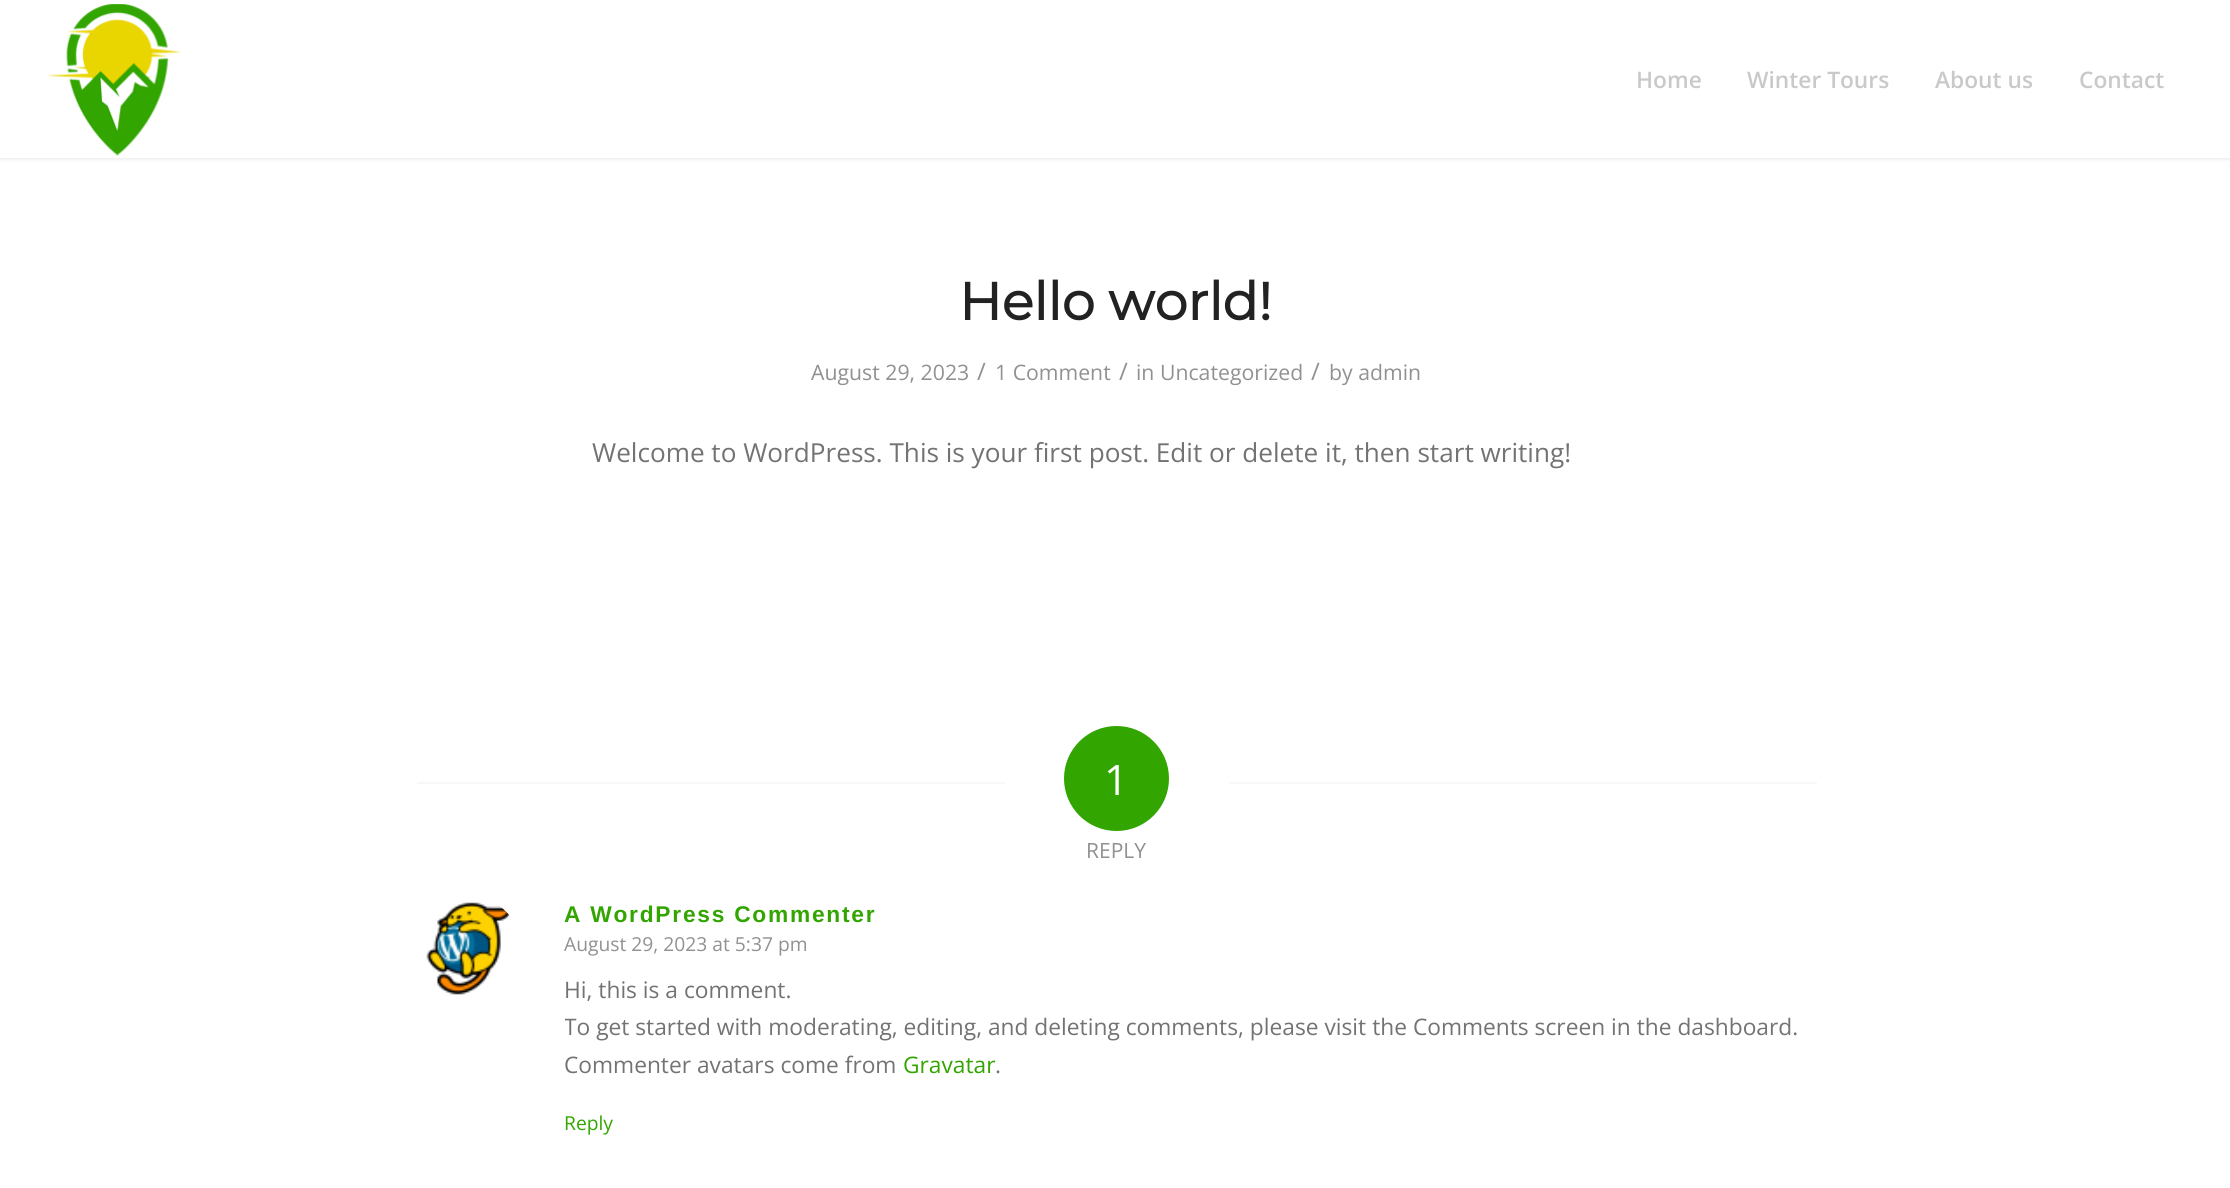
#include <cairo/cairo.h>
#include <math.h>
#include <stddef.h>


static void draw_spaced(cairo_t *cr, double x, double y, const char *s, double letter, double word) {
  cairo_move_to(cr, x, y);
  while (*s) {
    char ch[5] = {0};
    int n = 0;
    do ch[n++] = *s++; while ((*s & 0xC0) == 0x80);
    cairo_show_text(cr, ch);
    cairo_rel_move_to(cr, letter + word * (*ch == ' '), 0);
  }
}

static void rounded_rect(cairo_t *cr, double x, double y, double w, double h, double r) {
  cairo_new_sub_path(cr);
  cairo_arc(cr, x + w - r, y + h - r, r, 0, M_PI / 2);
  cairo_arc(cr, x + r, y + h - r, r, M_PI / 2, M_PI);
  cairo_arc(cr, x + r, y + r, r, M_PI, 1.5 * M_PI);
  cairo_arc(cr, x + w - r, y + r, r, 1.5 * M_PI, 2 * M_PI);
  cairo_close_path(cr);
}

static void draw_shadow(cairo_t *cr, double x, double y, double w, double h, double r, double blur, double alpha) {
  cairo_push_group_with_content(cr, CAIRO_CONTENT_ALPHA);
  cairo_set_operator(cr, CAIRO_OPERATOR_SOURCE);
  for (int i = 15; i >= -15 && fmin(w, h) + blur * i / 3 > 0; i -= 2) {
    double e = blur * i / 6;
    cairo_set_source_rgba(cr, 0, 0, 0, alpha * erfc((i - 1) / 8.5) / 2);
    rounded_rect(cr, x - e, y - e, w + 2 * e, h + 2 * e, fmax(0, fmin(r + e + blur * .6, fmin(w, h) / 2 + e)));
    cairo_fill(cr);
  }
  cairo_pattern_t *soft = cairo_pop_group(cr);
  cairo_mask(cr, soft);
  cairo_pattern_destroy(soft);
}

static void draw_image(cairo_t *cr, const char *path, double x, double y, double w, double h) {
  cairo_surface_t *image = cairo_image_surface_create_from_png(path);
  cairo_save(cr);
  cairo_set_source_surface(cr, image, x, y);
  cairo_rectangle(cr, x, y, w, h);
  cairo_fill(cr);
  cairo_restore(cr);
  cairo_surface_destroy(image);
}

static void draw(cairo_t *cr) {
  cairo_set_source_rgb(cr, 1, 1, 1);
  cairo_paint(cr);
  cairo_set_source_rgb(cr, 0, 0, 0);
  draw_shadow(cr, -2, -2, 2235, 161, 0, 2, 0.1);
  cairo_set_source_rgb(cr, 1, 1, 1);
  cairo_rectangle(cr, 0, 0, 2230, 158);
  cairo_fill(cr);
  draw_image(cr, "images/1.png", 46, 4, 135, 152);
  cairo_set_source_rgb(cr, 248 / 255.0, 248 / 255.0, 248 / 255.0);
  cairo_rectangle(cr, 417, 782, 588, 2);
  cairo_fill(cr);
  cairo_set_source_rgb(cr, 50 / 255.0, 165 / 255.0, 0);
  cairo_arc(cr, 1116.5, 778.5, 52.5, 0, 2 * M_PI);
  cairo_fill(cr);
  cairo_set_source_rgb(cr, 248 / 255.0, 248 / 255.0, 248 / 255.0);
  cairo_rectangle(cr, 1229, 782, 588, 2);
  cairo_fill(cr);
  draw_image(cr, "images/2.png", 426, 902, 84, 93);
  cairo_select_font_face(cr, "Open Sans SemiBold", CAIRO_FONT_SLANT_NORMAL, CAIRO_FONT_WEIGHT_NORMAL);
  cairo_set_font_size(cr, 22.75);
  cairo_set_source_rgb(cr, 201 / 255.0, 201 / 255.0, 201 / 255.0);
  cairo_move_to(cr, 1636, 88);
  cairo_show_text(cr, "Home");
  cairo_move_to(cr, 1747, 88);
  cairo_show_text(cr, "Winter Tours");
  cairo_move_to(cr, 1935, 88);
  cairo_show_text(cr, "About us");
  cairo_move_to(cr, 2079, 88);
  cairo_show_text(cr, "Contact");
  cairo_select_font_face(cr, "Montserrat", CAIRO_FONT_SLANT_NORMAL, CAIRO_FONT_WEIGHT_BOLD);
  cairo_set_font_size(cr, 52.5);
  cairo_set_source_rgb(cr, 34 / 255.0, 34 / 255.0, 34 / 255.0);
  cairo_move_to(cr, 959, 320);
  cairo_show_text(cr, "Hello world!");
  cairo_select_font_face(cr, "Open Sans", CAIRO_FONT_SLANT_NORMAL, CAIRO_FONT_WEIGHT_NORMAL);
  cairo_set_font_size(cr, 21.25);
  cairo_set_source_rgb(cr, 145 / 255.0, 145 / 255.0, 145 / 255.0);
  cairo_move_to(cr, 811, 380);
  cairo_show_text(cr, "August 29, 2023");
  cairo_set_font_size(cr, 24);
  cairo_move_to(cr, 977, 380);
  cairo_show_text(cr, "/");
  cairo_set_font_size(cr, 21.25);
  cairo_move_to(cr, 995, 380);
  cairo_show_text(cr, "1 Comment");
  cairo_set_font_size(cr, 24);
  cairo_move_to(cr, 1119, 380);
  cairo_show_text(cr, "/");
  cairo_set_font_size(cr, 21.25);
  cairo_move_to(cr, 1136, 380);
  cairo_show_text(cr, "in Uncategorized");
  cairo_set_font_size(cr, 24);
  cairo_move_to(cr, 1311, 380);
  cairo_show_text(cr, "/");
  cairo_set_font_size(cr, 21.25);
  cairo_move_to(cr, 1329, 380);
  cairo_show_text(cr, "by admin");
  cairo_set_font_size(cr, 26.15);
  cairo_set_source_rgb(cr, 115 / 255.0, 115 / 255.0, 115 / 255.0);
  cairo_move_to(cr, 592, 462);
  cairo_show_text(cr, "Welcome to WordPress. This is your first post. Edit or delete it, then start writing!");
  cairo_set_font_size(cr, 42);
  cairo_set_source_rgb(cr, 1, 1, 1);
  cairo_move_to(cr, 1104, 795);
  cairo_show_text(cr, "1");
  cairo_set_font_size(cr, 21);
  cairo_set_source_rgb(cr, 145 / 255.0, 145 / 255.0, 145 / 255.0);
  cairo_move_to(cr, 1086, 858);
  cairo_show_text(cr, "REPLY");
  cairo_select_font_face(cr, "Liberation Sans", CAIRO_FONT_SLANT_NORMAL, CAIRO_FONT_WEIGHT_BOLD);
  cairo_set_font_size(cr, 22.75);
  cairo_set_source_rgb(cr, 50 / 255.0, 165 / 255.0, 0);
  draw_spaced(cr, 564, 922, "A WordPress Commenter", 1.75, 0);
  cairo_select_font_face(cr, "Open Sans", CAIRO_FONT_SLANT_NORMAL, CAIRO_FONT_WEIGHT_NORMAL);
  cairo_set_font_size(cr, 19.25);
  cairo_set_source_rgb(cr, 145 / 255.0, 145 / 255.0, 145 / 255.0);
  cairo_move_to(cr, 564, 951);
  cairo_show_text(cr, "August 29, 2023 at 5:37 pm");
  cairo_set_font_size(cr, 22.75);
  cairo_set_source_rgb(cr, 115 / 255.0, 115 / 255.0, 115 / 255.0);
  cairo_move_to(cr, 564, 998);
  cairo_show_text(cr, "Hi, this is a comment.");
  cairo_save(cr);
  cairo_rectangle(cr, 565, 896, 1252, 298);
  cairo_clip(cr);
  cairo_move_to(cr, 564, 1035);
  cairo_show_text(cr, "To get started with moderating, editing, and deleting comments, please visit the Comments screen in the dashboard.");
  cairo_restore(cr);
  cairo_move_to(cr, 564, 1073);
  cairo_show_text(cr, "Commenter avatars come from");
  cairo_set_source_rgb(cr, 50 / 255.0, 165 / 255.0, 0);
  cairo_move_to(cr, 903, 1073);
  cairo_show_text(cr, "Gravatar");
  cairo_set_source_rgb(cr, 115 / 255.0, 115 / 255.0, 115 / 255.0);
  cairo_move_to(cr, 995, 1073);
  cairo_show_text(cr, ".");
  cairo_set_font_size(cr, 19.25);
  cairo_set_source_rgb(cr, 50 / 255.0, 165 / 255.0, 0);
  cairo_move_to(cr, 564, 1130);
  cairo_show_text(cr, "Reply");
}

int main(void) {
  cairo_surface_t *surface = cairo_image_surface_create(CAIRO_FORMAT_RGB24, 2230, 1188);
  cairo_t *cr = cairo_create(surface);
  cairo_font_options_t *options = cairo_font_options_create();
  cairo_font_options_set_hint_metrics(options, CAIRO_HINT_METRICS_OFF);
  cairo_font_options_set_hint_style(options, CAIRO_HINT_STYLE_NONE);
  cairo_set_font_options(cr, options);
  cairo_set_miter_limit(cr, 4);
  draw(cr);
  cairo_surface_write_to_png(surface, "out.png");
  cairo_font_options_destroy(options);
  cairo_destroy(cr);
  cairo_surface_destroy(surface);
  return 0;
}
